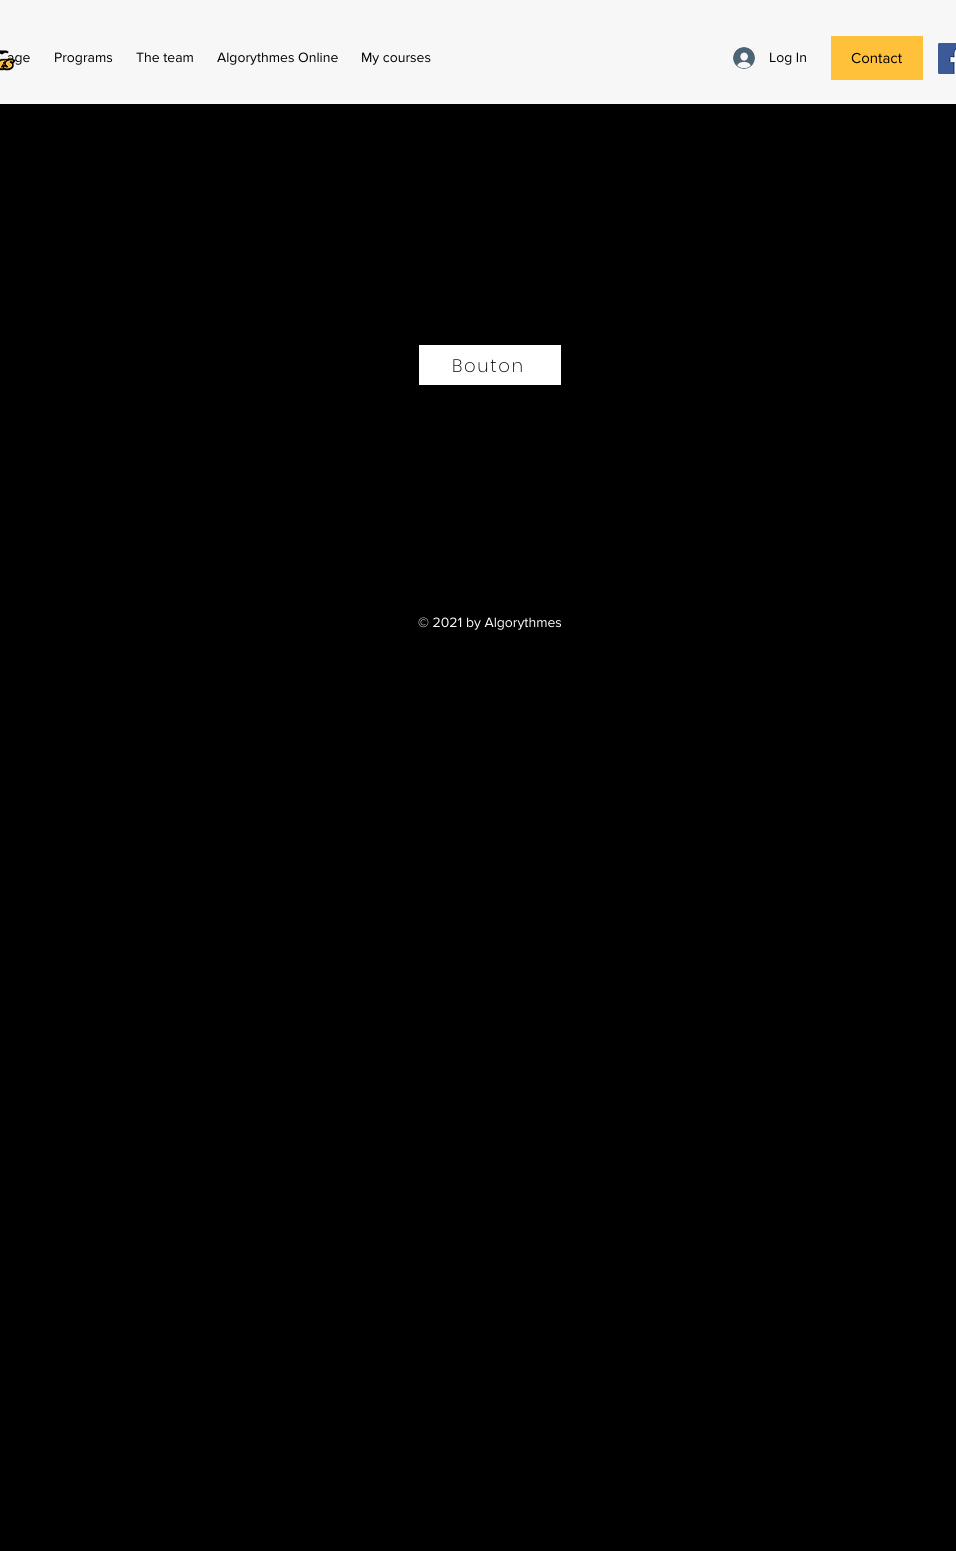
#include <cairo/cairo.h>
#include <math.h>
#include <stddef.h>


static void draw_spaced(cairo_t *cr, double x, double y, const char *s, double letter, double word) {
  cairo_move_to(cr, x, y);
  while (*s) {
    char ch[5] = {0};
    int n = 0;
    do ch[n++] = *s++; while ((*s & 0xC0) == 0x80);
    cairo_show_text(cr, ch);
    cairo_rel_move_to(cr, letter + word * (*ch == ' '), 0);
  }
}

static void draw_image(cairo_t *cr, const char *path, double x, double y, double w, double h) {
  cairo_surface_t *image = cairo_image_surface_create_from_png(path);
  cairo_save(cr);
  cairo_set_source_surface(cr, image, x, y);
  cairo_rectangle(cr, x, y, w, h);
  cairo_fill(cr);
  cairo_restore(cr);
  cairo_surface_destroy(image);
}

static void draw(cairo_t *cr) {
  cairo_set_source_rgb(cr, 0, 0, 0);
  cairo_paint(cr);
  cairo_set_source_rgb(cr, 247 / 255.0, 247 / 255.0, 247 / 255.0);
  cairo_rectangle(cr, 0, 0, 956, 104);
  cairo_fill(cr);
  draw_image(cr, "images/2.png", 733, 47, 22, 22);
  cairo_set_source_rgb(cr, 1, 192 / 255.0, 58 / 255.0);
  cairo_rectangle(cr, 831, 36, 92, 44);
  cairo_fill(cr);
  draw_image(cr, "images/3.png", 938, 43, 18, 31);
  cairo_set_source_rgb(cr, 1, 1, 1);
  cairo_rectangle(cr, 419, 345, 142, 40);
  cairo_fill(cr);
  cairo_select_font_face(cr, "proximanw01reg", CAIRO_FONT_SLANT_NORMAL, CAIRO_FONT_WEIGHT_NORMAL);
  cairo_set_font_size(cr, 14);
  cairo_set_source_rgb(cr, 0, 0, 0);
  cairo_move_to(cr, 7, 62);
  cairo_show_text(cr, "age");
  draw_image(cr, "images/1.png", 0, 50, 16, 21);
  cairo_move_to(cr, 54, 62);
  cairo_show_text(cr, "Programs");
  cairo_move_to(cr, 136, 62);
  cairo_show_text(cr, "The team");
  cairo_move_to(cr, 217, 62);
  cairo_show_text(cr, "Algorythmes Online");
  cairo_move_to(cr, 361, 62);
  cairo_show_text(cr, "My courses");
  cairo_move_to(cr, 769, 62);
  cairo_show_text(cr, "Log In");
  cairo_set_font_size(cr, 15);
  cairo_move_to(cr, 851, 63);
  cairo_show_text(cr, "Contact");
  cairo_select_font_face(cr, "Poppins ExtraLight", CAIRO_FONT_SLANT_NORMAL, CAIRO_FONT_WEIGHT_NORMAL);
  cairo_set_font_size(cr, 18);
  draw_spaced(cr, 452, 372, "Bouton", 1.75, 0);
  cairo_select_font_face(cr, "proximanw01reg", CAIRO_FONT_SLANT_NORMAL, CAIRO_FONT_WEIGHT_NORMAL);
  cairo_set_font_size(cr, 14);
  cairo_set_source_rgb(cr, 1, 1, 1);
  cairo_move_to(cr, 418, 627);
  cairo_show_text(cr, "© 2021 by Algorythmes");
}

int main(void) {
  cairo_surface_t *surface = cairo_image_surface_create(CAIRO_FORMAT_RGB24, 956, 1551);
  cairo_t *cr = cairo_create(surface);
  cairo_font_options_t *options = cairo_font_options_create();
  cairo_font_options_set_hint_metrics(options, CAIRO_HINT_METRICS_OFF);
  cairo_font_options_set_hint_style(options, CAIRO_HINT_STYLE_NONE);
  cairo_set_font_options(cr, options);
  cairo_set_miter_limit(cr, 4);
  draw(cr);
  cairo_surface_write_to_png(surface, "out.png");
  cairo_font_options_destroy(options);
  cairo_destroy(cr);
  cairo_surface_destroy(surface);
  return 0;
}
